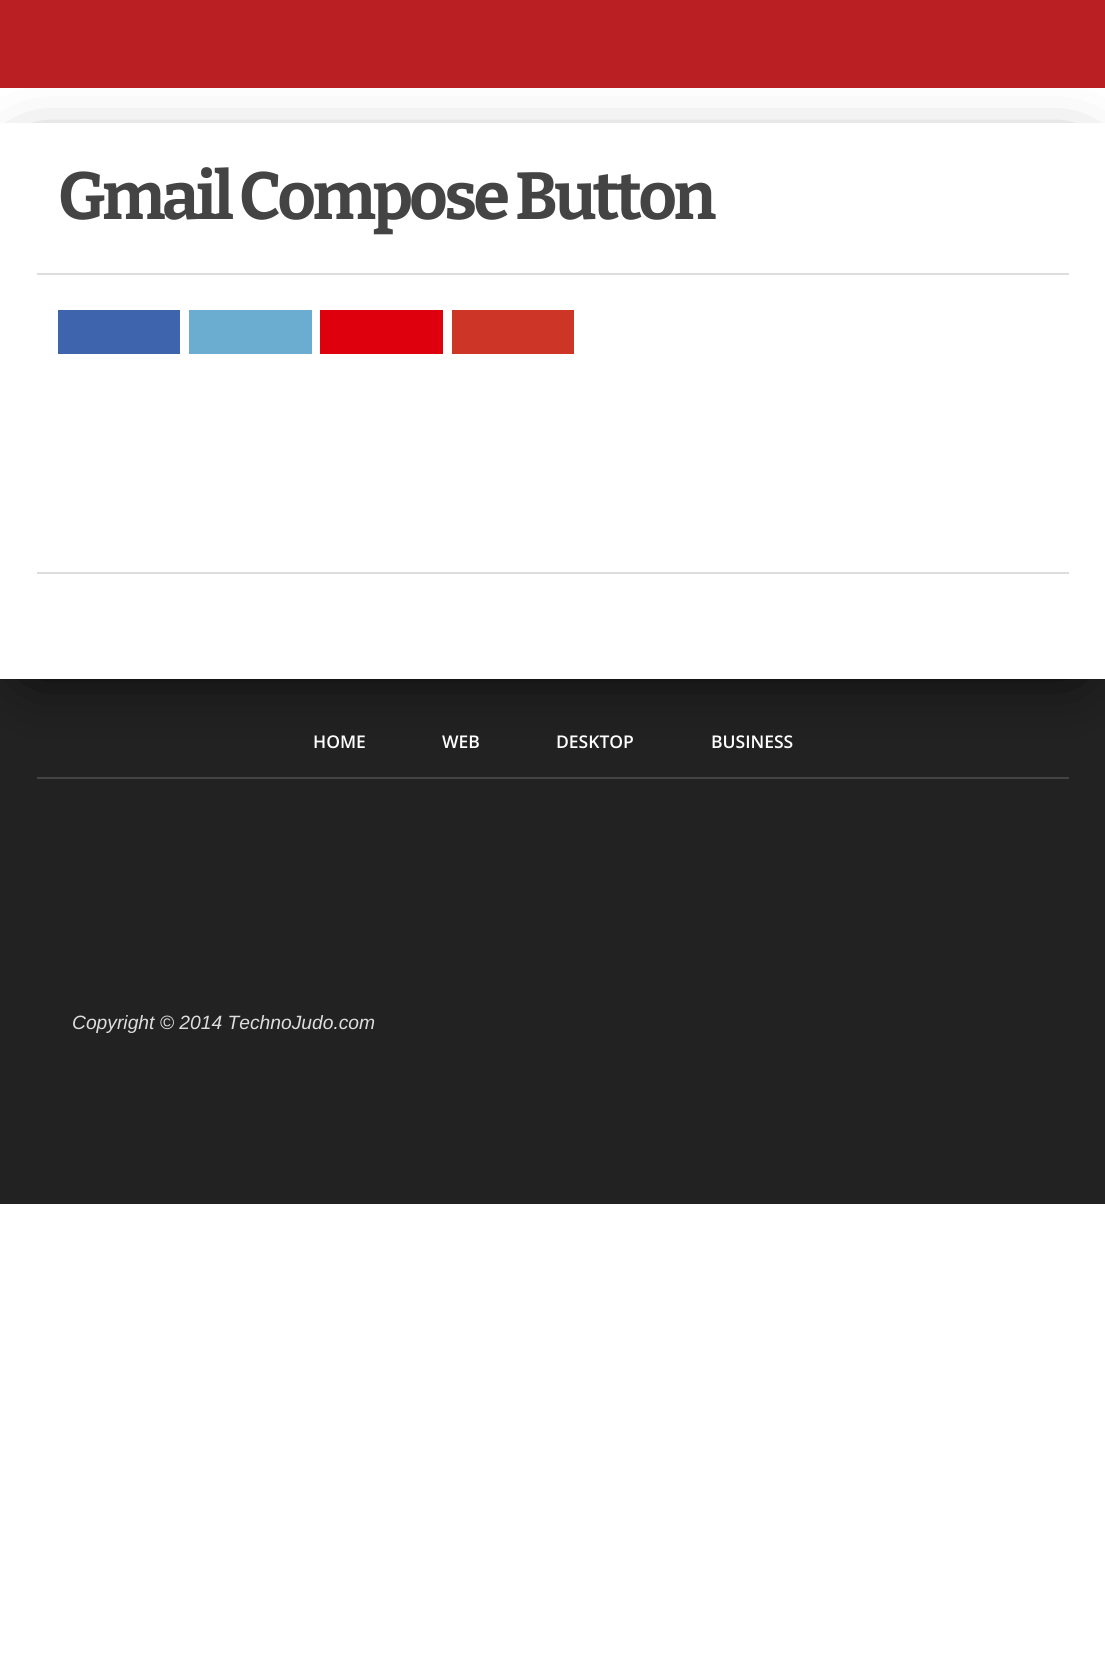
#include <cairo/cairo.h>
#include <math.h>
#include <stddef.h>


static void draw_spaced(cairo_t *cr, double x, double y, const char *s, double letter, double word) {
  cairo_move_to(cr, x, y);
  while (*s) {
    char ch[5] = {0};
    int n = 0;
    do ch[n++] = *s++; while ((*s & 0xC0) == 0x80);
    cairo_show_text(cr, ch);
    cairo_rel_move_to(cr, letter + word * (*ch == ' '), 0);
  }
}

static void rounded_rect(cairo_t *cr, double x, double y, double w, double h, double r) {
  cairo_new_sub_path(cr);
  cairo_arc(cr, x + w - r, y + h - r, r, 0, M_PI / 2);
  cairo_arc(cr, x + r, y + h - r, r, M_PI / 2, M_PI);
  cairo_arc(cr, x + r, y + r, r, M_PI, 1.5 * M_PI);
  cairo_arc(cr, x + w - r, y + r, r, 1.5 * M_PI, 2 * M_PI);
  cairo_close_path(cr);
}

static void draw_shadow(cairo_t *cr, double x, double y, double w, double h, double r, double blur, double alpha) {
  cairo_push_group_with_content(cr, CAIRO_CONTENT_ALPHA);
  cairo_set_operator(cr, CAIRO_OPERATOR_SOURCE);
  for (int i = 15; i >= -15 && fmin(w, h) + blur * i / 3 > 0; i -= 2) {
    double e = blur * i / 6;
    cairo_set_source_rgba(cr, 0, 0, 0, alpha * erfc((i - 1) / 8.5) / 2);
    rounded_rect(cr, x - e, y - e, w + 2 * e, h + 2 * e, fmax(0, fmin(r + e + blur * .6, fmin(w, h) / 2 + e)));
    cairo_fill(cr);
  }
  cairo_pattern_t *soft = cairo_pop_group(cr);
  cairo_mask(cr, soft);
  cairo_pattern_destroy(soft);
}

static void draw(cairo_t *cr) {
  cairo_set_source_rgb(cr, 1, 1, 1);
  cairo_paint(cr);
  cairo_set_source_rgb(cr, 34 / 255.0, 34 / 255.0, 34 / 255.0);
  cairo_rectangle(cr, 0, 679, 1105, 525);
  cairo_fill(cr);
  cairo_save(cr);
  cairo_set_fill_rule(cr, CAIRO_FILL_RULE_EVEN_ODD);
  cairo_new_path(cr);
  cairo_move_to(cr, 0, 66);
  cairo_line_to(cr, 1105, 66);
  cairo_line_to(cr, 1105, 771);
  cairo_line_to(cr, 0, 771);
  cairo_close_path(cr);
  cairo_move_to(cr, 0, 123);
  cairo_line_to(cr, 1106, 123);
  cairo_line_to(cr, 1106, 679);
  cairo_line_to(cr, 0, 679);
  cairo_close_path(cr);
  cairo_clip(cr);
  cairo_set_source_rgb(cr, 0, 0, 0);
  draw_shadow(cr, 32, 172, 1043, 493, 0, 35, 1);
  cairo_restore(cr);
  cairo_set_source_rgb(cr, 186 / 255.0, 31 / 255.0, 36 / 255.0);
  cairo_rectangle(cr, 0, 0, 1105, 88);
  cairo_fill(cr);
  cairo_set_source_rgb(cr, 221 / 255.0, 221 / 255.0, 221 / 255.0);
  cairo_rectangle(cr, 37, 273, 1032, 2);
  cairo_fill(cr);
  cairo_set_source_rgb(cr, 62 / 255.0, 100 / 255.0, 173 / 255.0);
  cairo_rectangle(cr, 58, 310, 122, 44);
  cairo_fill(cr);
  cairo_set_source_rgb(cr, 106 / 255.0, 173 / 255.0, 209 / 255.0);
  cairo_rectangle(cr, 189, 310, 123, 44);
  cairo_fill(cr);
  cairo_set_source_rgb(cr, 222 / 255.0, 1 / 255.0, 13 / 255.0);
  cairo_rectangle(cr, 320, 310, 123, 44);
  cairo_fill(cr);
  cairo_set_source_rgb(cr, 205 / 255.0, 54 / 255.0, 39 / 255.0);
  cairo_rectangle(cr, 452, 310, 122, 44);
  cairo_fill(cr);
  cairo_set_source_rgb(cr, 221 / 255.0, 221 / 255.0, 221 / 255.0);
  cairo_rectangle(cr, 37, 572, 1032, 2);
  cairo_fill(cr);
  cairo_set_source_rgb(cr, 68 / 255.0, 68 / 255.0, 68 / 255.0);
  cairo_rectangle(cr, 37, 777, 1032, 2);
  cairo_fill(cr);
  cairo_select_font_face(cr, "Bitter", CAIRO_FONT_SLANT_NORMAL, CAIRO_FONT_WEIGHT_BOLD);
  cairo_set_font_size(cr, 66.5);
  draw_spaced(cr, 58, 219, "Gmail Compose Button", -3.5, 0);
  cairo_select_font_face(cr, "Open Sans SemiBold", CAIRO_FONT_SLANT_NORMAL, CAIRO_FONT_WEIGHT_NORMAL);
  cairo_set_font_size(cr, 17.5);
  cairo_set_source_rgb(cr, 1, 1, 1);
  cairo_move_to(cr, 313, 748);
  cairo_show_text(cr, "HOME");
  cairo_move_to(cr, 442, 748);
  cairo_show_text(cr, "WEB");
  cairo_move_to(cr, 556, 748);
  cairo_show_text(cr, "DESKTOP");
  cairo_move_to(cr, 711, 748);
  cairo_show_text(cr, "BUSINESS");
  cairo_select_font_face(cr, "Liberation Sans", CAIRO_FONT_SLANT_ITALIC, CAIRO_FONT_WEIGHT_NORMAL);
  cairo_set_font_size(cr, 19.25);
  cairo_set_source_rgb(cr, 221 / 255.0, 221 / 255.0, 221 / 255.0);
  cairo_move_to(cr, 72, 1029);
  cairo_show_text(cr, "Copyright © 2014 TechnoJudo.com");
}

int main(void) {
  cairo_surface_t *surface = cairo_image_surface_create(CAIRO_FORMAT_RGB24, 1105, 1662);
  cairo_t *cr = cairo_create(surface);
  cairo_font_options_t *options = cairo_font_options_create();
  cairo_font_options_set_hint_metrics(options, CAIRO_HINT_METRICS_OFF);
  cairo_font_options_set_hint_style(options, CAIRO_HINT_STYLE_NONE);
  cairo_set_font_options(cr, options);
  cairo_set_miter_limit(cr, 4);
  draw(cr);
  cairo_surface_write_to_png(surface, "out.png");
  cairo_font_options_destroy(options);
  cairo_destroy(cr);
  cairo_surface_destroy(surface);
  return 0;
}
